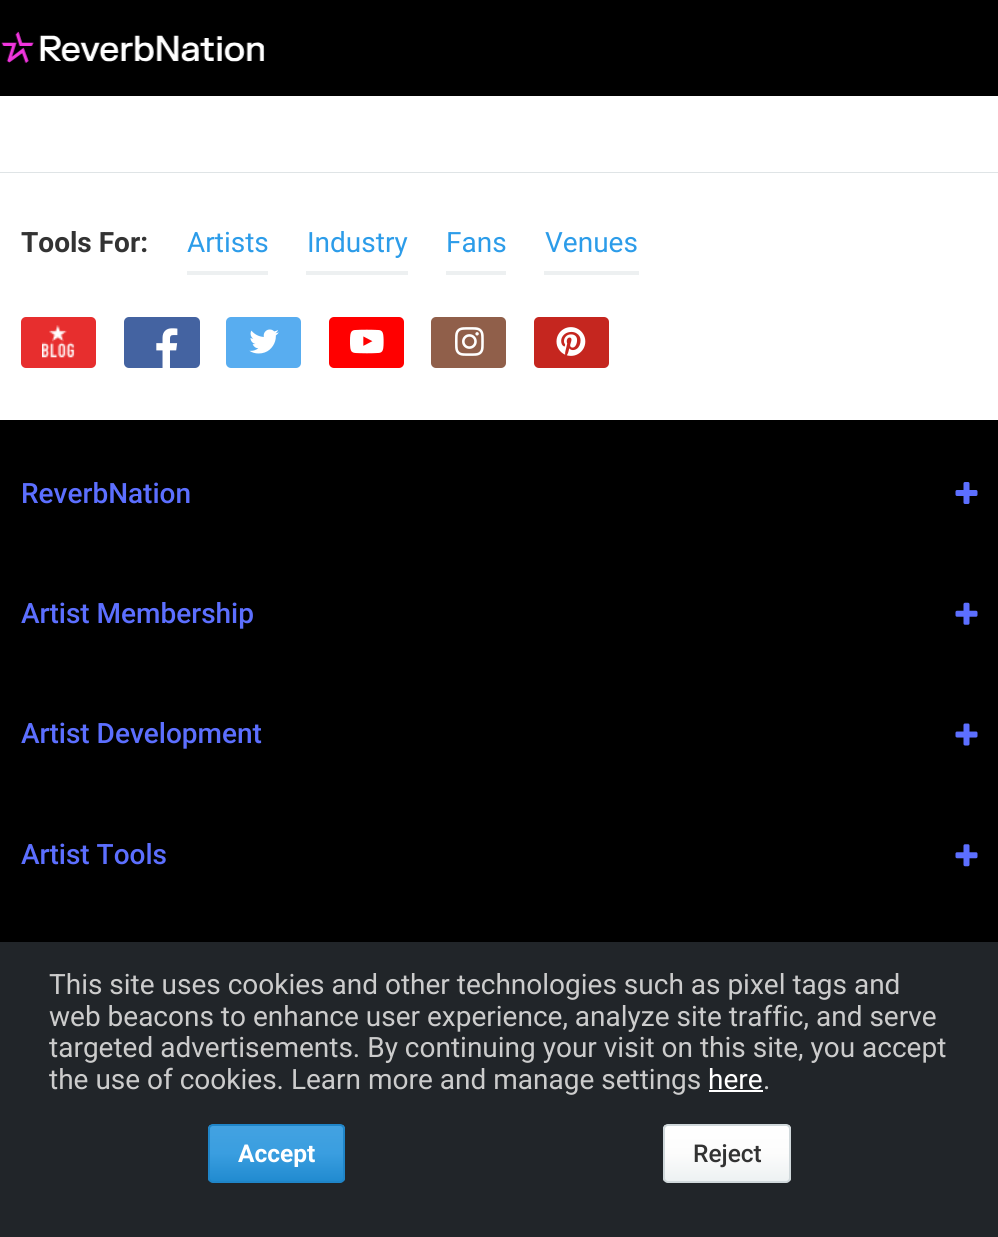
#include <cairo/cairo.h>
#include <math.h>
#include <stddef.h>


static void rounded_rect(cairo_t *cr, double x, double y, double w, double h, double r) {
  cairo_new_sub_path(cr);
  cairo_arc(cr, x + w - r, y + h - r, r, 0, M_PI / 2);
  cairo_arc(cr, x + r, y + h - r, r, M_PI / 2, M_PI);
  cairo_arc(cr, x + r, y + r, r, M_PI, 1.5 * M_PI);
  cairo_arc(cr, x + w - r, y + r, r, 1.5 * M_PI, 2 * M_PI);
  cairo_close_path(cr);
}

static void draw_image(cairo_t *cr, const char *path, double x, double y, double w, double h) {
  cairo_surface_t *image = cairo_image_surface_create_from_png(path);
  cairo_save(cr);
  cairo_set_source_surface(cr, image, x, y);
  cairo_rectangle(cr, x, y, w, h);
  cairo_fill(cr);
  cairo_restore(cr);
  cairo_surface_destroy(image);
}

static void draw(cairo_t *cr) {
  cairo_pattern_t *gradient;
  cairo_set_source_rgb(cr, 1, 1, 1);
  cairo_paint(cr);
  cairo_set_source_rgb(cr, 0, 0, 0);
  cairo_rectangle(cr, 0, 0, 998, 96);
  cairo_fill(cr);
  draw_image(cr, "images/1.png", 1, 31, 264, 32);
  cairo_set_source_rgb(cr, 223 / 255.0, 228 / 255.0, 230 / 255.0);
  cairo_rectangle(cr, 0, 172, 998, 1);
  cairo_fill(cr);
  cairo_set_source_rgb(cr, 237 / 255.0, 240 / 255.0, 241 / 255.0);
  cairo_rectangle(cr, 187, 271, 81, 4);
  cairo_fill(cr);
  cairo_rectangle(cr, 306, 271, 102, 4);
  cairo_fill(cr);
  cairo_rectangle(cr, 446, 271, 60, 4);
  cairo_fill(cr);
  cairo_rectangle(cr, 544, 271, 95, 4);
  cairo_fill(cr);
  cairo_set_source_rgb(cr, 231 / 255.0, 46 / 255.0, 46 / 255.0);
  rounded_rect(cr, 21, 317, 75, 51, 5);
  cairo_fill(cr);
  draw_image(cr, "images/2.png", 42, 325, 33, 33);
  cairo_set_source_rgb(cr, 68 / 255.0, 99 / 255.0, 161 / 255.0);
  rounded_rect(cr, 124, 317, 76, 51, 5);
  cairo_fill(cr);
  draw_image(cr, "images/3.png", 156, 328, 22, 40);
  cairo_set_source_rgb(cr, 88 / 255.0, 173 / 255.0, 240 / 255.0);
  rounded_rect(cr, 226, 317, 75, 51, 5);
  cairo_fill(cr);
  draw_image(cr, "images/4.png", 249, 329, 30, 25);
  cairo_set_source_rgb(cr, 1, 0, 0);
  rounded_rect(cr, 329, 317, 75, 51, 5);
  cairo_fill(cr);
  draw_image(cr, "images/5.png", 350, 329, 34, 25);
  cairo_set_source_rgb(cr, 144 / 255.0, 95 / 255.0, 74 / 255.0);
  rounded_rect(cr, 431, 317, 75, 51, 5);
  cairo_fill(cr);
  draw_image(cr, "images/6.png", 455, 327, 29, 29);
  cairo_set_source_rgb(cr, 197 / 255.0, 38 / 255.0, 31 / 255.0);
  rounded_rect(cr, 534, 317, 75, 51, 5);
  cairo_fill(cr);
  draw_image(cr, "images/7.png", 556, 327, 30, 29);
  cairo_set_source_rgb(cr, 0, 0, 0);
  cairo_rectangle(cr, 0, 420, 998, 522);
  cairo_fill(cr);
  draw_image(cr, "images/8.png", 955, 482, 23, 22);
  draw_image(cr, "images/9.png", 955, 602, 23, 23);
  draw_image(cr, "images/10.png", 955, 723, 23, 23);
  draw_image(cr, "images/11.png", 955, 844, 23, 23);
  cairo_set_source_rgb(cr, 33 / 255.0, 37 / 255.0, 41 / 255.0);
  cairo_rectangle(cr, 0, 942, 998, 295);
  cairo_fill(cr);
  cairo_set_source_rgb(cr, 1, 1, 1);
  cairo_rectangle(cr, 709, 1090, 54, 2);
  cairo_fill(cr);
  cairo_save(cr);
  rounded_rect(cr, 208, 1124, 137, 59, 5);
  cairo_clip(cr);
  gradient = cairo_pattern_create_linear(277, 1125, 277, 1181);
  cairo_pattern_add_color_stop_rgba(gradient, 0, 67 / 255.0, 162 / 255.0, 225 / 255.0, 1);
  cairo_pattern_add_color_stop_rgba(gradient, 0.5, 58 / 255.0, 158 / 255.0, 224 / 255.0, 1);
  cairo_pattern_add_color_stop_rgba(gradient, 1, 33 / 255.0, 139 / 255.0, 208 / 255.0, 1);
  cairo_set_source(cr, gradient);
  cairo_pattern_destroy(gradient);
  cairo_rectangle(cr, 208, 1125, 137, 56);
  cairo_fill(cr);
  cairo_restore(cr);
  rounded_rect(cr, 209, 1125, 135, 57, 4);
  cairo_set_source_rgb(cr, 31 / 255.0, 133 / 255.0, 200 / 255.0);
  cairo_stroke(cr);
  cairo_save(cr);
  rounded_rect(cr, 663, 1124, 128, 59, 5);
  cairo_clip(cr);
  gradient = cairo_pattern_create_linear(727, 1125, 727, 1181);
  cairo_pattern_add_color_stop_rgba(gradient, 0, 1, 1, 1, 1);
  cairo_pattern_add_color_stop_rgba(gradient, 0.5, 252 / 255.0, 252 / 255.0, 252 / 255.0, 1);
  cairo_pattern_add_color_stop_rgba(gradient, 1, 237 / 255.0, 241 / 255.0, 242 / 255.0, 1);
  cairo_set_source(cr, gradient);
  cairo_pattern_destroy(gradient);
  cairo_rectangle(cr, 663, 1125, 128, 56);
  cairo_fill(cr);
  cairo_restore(cr);
  rounded_rect(cr, 664, 1125, 126, 57, 4);
  cairo_set_source_rgb(cr, 208 / 255.0, 216 / 255.0, 219 / 255.0);
  cairo_stroke(cr);
  cairo_select_font_face(cr, "Roboto", CAIRO_FONT_SLANT_NORMAL, CAIRO_FONT_WEIGHT_BOLD);
  cairo_set_font_size(cr, 28);
  cairo_set_source_rgb(cr, 51 / 255.0, 51 / 255.0, 51 / 255.0);
  cairo_move_to(cr, 21, 252);
  cairo_show_text(cr, "Tools For:");
  cairo_select_font_face(cr, "Roboto", CAIRO_FONT_SLANT_NORMAL, CAIRO_FONT_WEIGHT_NORMAL);
  cairo_set_source_rgb(cr, 44 / 255.0, 156 / 255.0, 233 / 255.0);
  cairo_move_to(cr, 187, 252);
  cairo_show_text(cr, "Artists");
  cairo_move_to(cr, 307, 252);
  cairo_show_text(cr, "Industry");
  cairo_move_to(cr, 446, 252);
  cairo_show_text(cr, "Fans");
  cairo_move_to(cr, 545, 252);
  cairo_show_text(cr, "Venues");
  cairo_select_font_face(cr, "Roboto Medium", CAIRO_FONT_SLANT_NORMAL, CAIRO_FONT_WEIGHT_NORMAL);
  cairo_set_source_rgb(cr, 92 / 255.0, 111 / 255.0, 1);
  cairo_move_to(cr, 21, 503);
  cairo_show_text(cr, "ReverbNation");
  cairo_move_to(cr, 21, 623);
  cairo_show_text(cr, "Artist Membership");
  cairo_move_to(cr, 21, 743);
  cairo_show_text(cr, "Artist Development");
  cairo_move_to(cr, 21, 864);
  cairo_show_text(cr, "Artist Tools");
  cairo_select_font_face(cr, "Roboto", CAIRO_FONT_SLANT_NORMAL, CAIRO_FONT_WEIGHT_NORMAL);
  cairo_set_source_rgb(cr, 204 / 255.0, 204 / 255.0, 204 / 255.0);
  cairo_move_to(cr, 49, 994);
  cairo_show_text(cr, "This site uses cookies and other technologies such as pixel tags and");
  cairo_move_to(cr, 49, 1026);
  cairo_show_text(cr, "web beacons to enhance user experience, analyze site traffic, and serve");
  cairo_move_to(cr, 49, 1057);
  cairo_show_text(cr, "targeted advertisements. By continuing your visit on this site, you accept");
  cairo_move_to(cr, 49, 1089);
  cairo_show_text(cr, "the use of cookies. Learn more and manage settings");
  cairo_set_source_rgb(cr, 1, 1, 1);
  cairo_move_to(cr, 708, 1089);
  cairo_show_text(cr, "here");
  cairo_set_source_rgb(cr, 204 / 255.0, 204 / 255.0, 204 / 255.0);
  cairo_move_to(cr, 763, 1089);
  cairo_show_text(cr, ".");
  cairo_select_font_face(cr, "Roboto", CAIRO_FONT_SLANT_NORMAL, CAIRO_FONT_WEIGHT_BOLD);
  cairo_set_font_size(cr, 24.5);
  cairo_set_source_rgb(cr, 1, 1, 1);
  cairo_move_to(cr, 238, 1162);
  cairo_show_text(cr, "Accept");
  cairo_select_font_face(cr, "Roboto Medium", CAIRO_FONT_SLANT_NORMAL, CAIRO_FONT_WEIGHT_NORMAL);
  cairo_set_source_rgb(cr, 51 / 255.0, 51 / 255.0, 51 / 255.0);
  cairo_move_to(cr, 693, 1162);
  cairo_show_text(cr, "Reject");
}

int main(void) {
  cairo_surface_t *surface = cairo_image_surface_create(CAIRO_FORMAT_RGB24, 998, 1237);
  cairo_t *cr = cairo_create(surface);
  cairo_font_options_t *options = cairo_font_options_create();
  cairo_font_options_set_hint_metrics(options, CAIRO_HINT_METRICS_OFF);
  cairo_font_options_set_hint_style(options, CAIRO_HINT_STYLE_NONE);
  cairo_set_font_options(cr, options);
  cairo_set_miter_limit(cr, 4);
  draw(cr);
  cairo_surface_write_to_png(surface, "out.png");
  cairo_font_options_destroy(options);
  cairo_destroy(cr);
  cairo_surface_destroy(surface);
  return 0;
}
